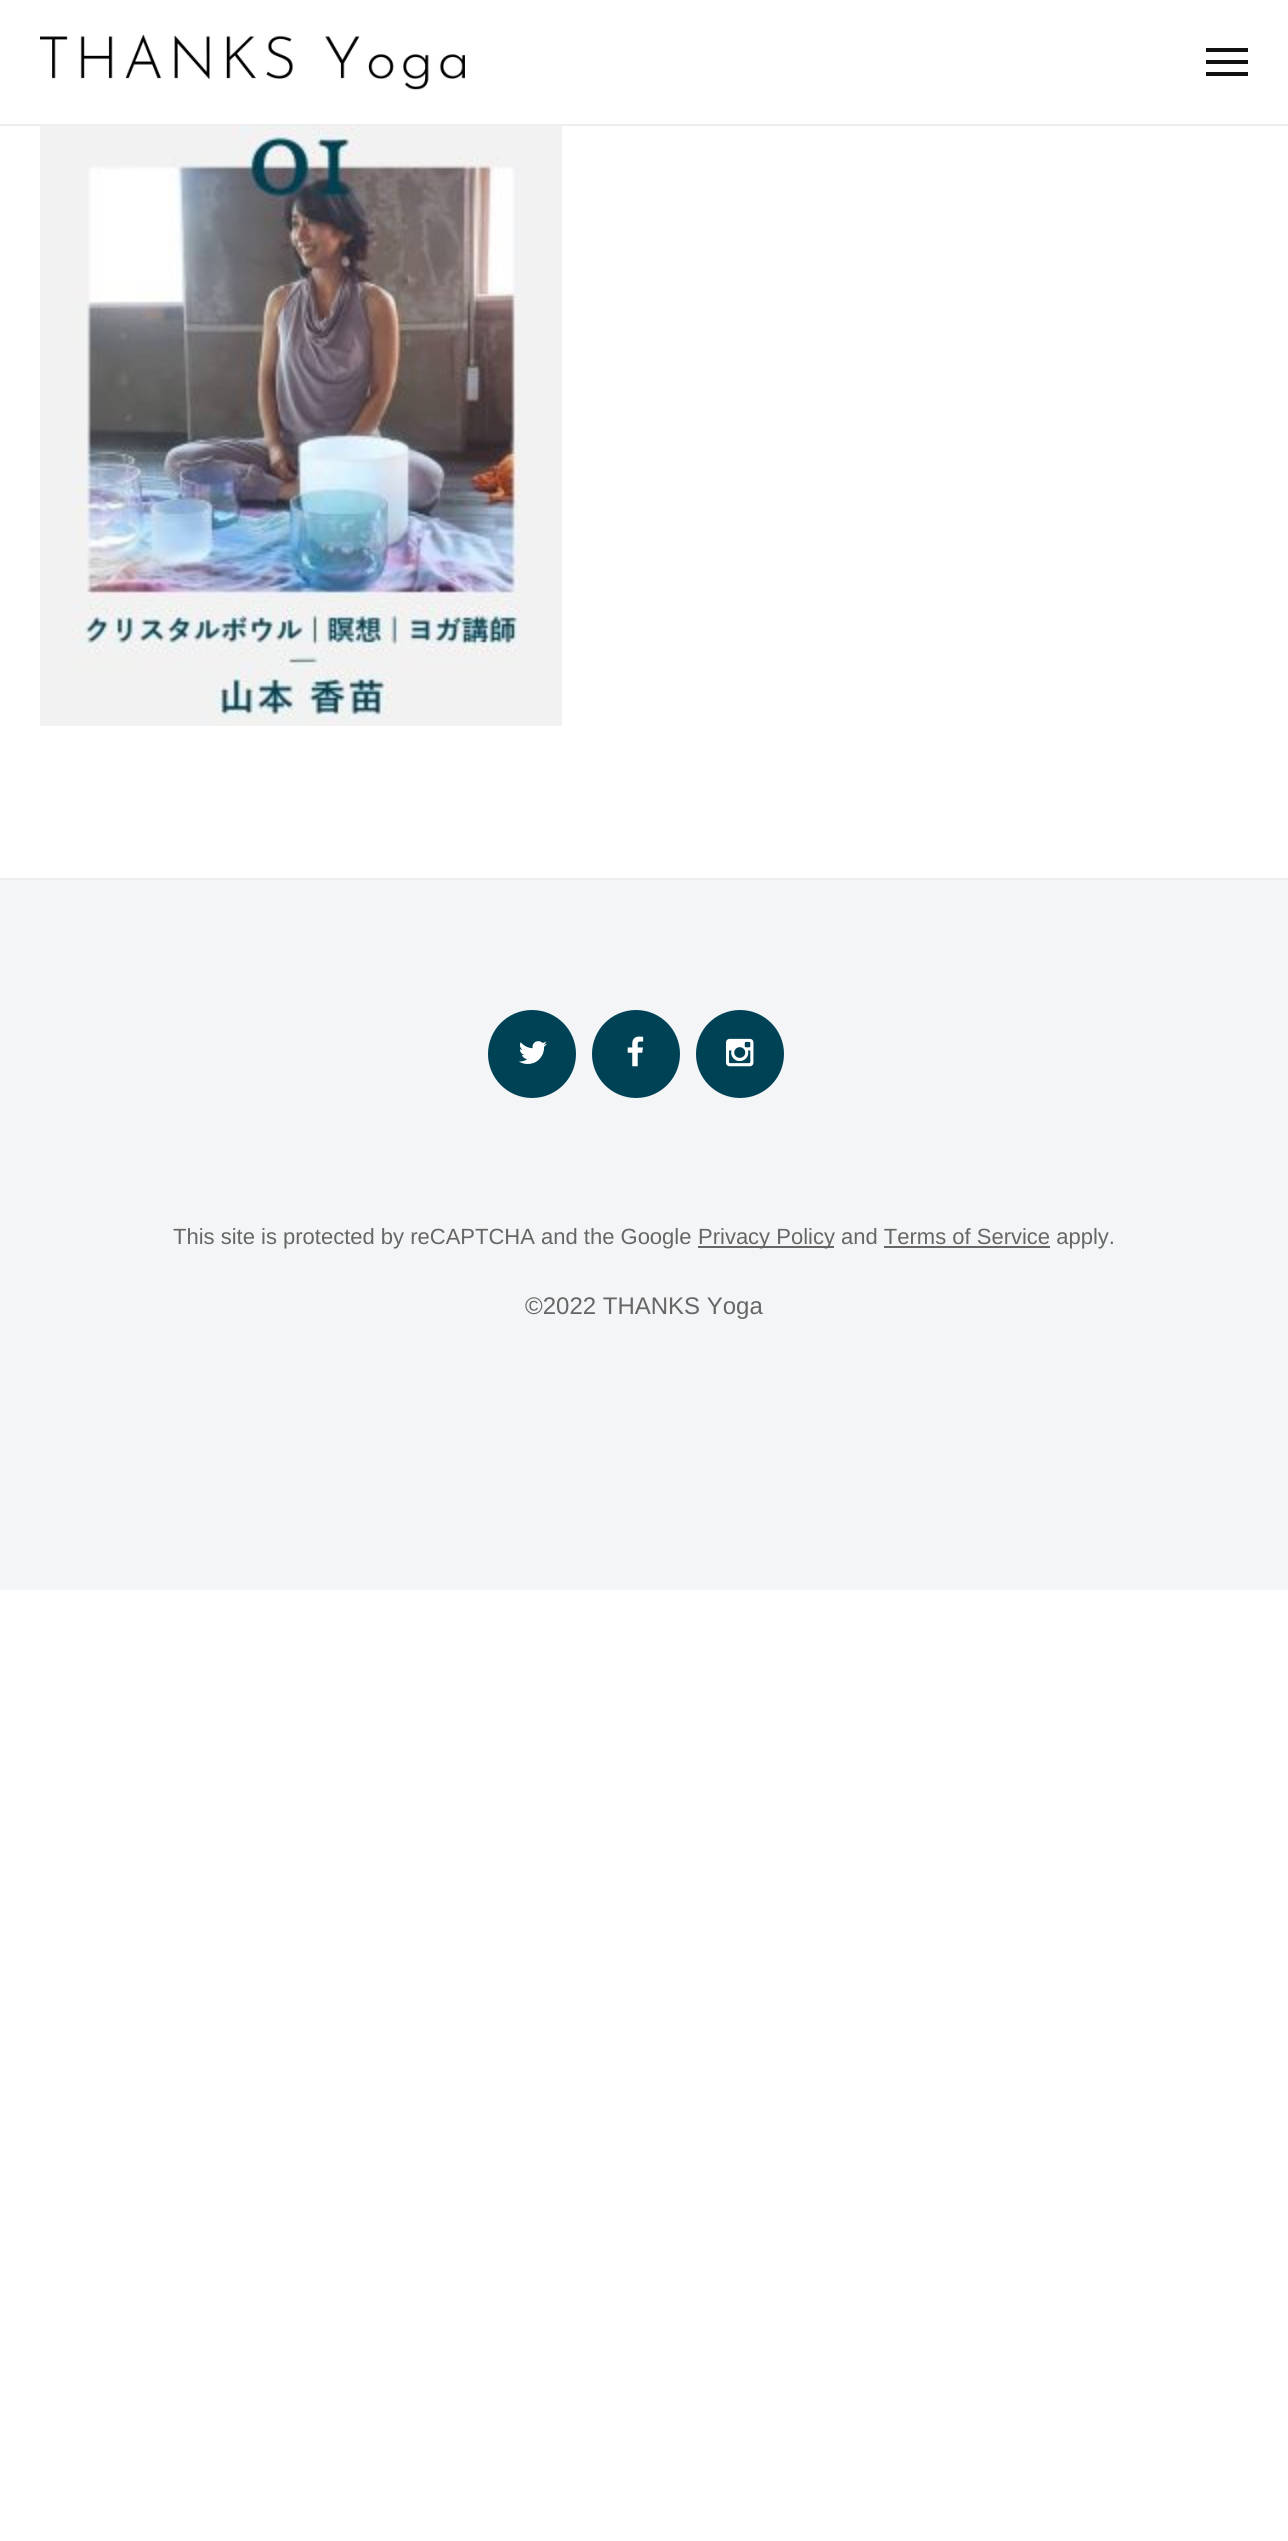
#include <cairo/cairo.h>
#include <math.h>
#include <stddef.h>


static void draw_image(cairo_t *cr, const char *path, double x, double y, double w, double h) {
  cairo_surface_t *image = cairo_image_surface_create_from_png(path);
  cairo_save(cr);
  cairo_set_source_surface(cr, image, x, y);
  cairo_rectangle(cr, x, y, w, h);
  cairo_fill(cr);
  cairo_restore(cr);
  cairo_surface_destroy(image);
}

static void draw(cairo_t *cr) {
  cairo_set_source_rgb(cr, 1, 1, 1);
  cairo_paint(cr);
  cairo_set_source_rgb(cr, 238 / 255.0, 238 / 255.0, 238 / 255.0);
  cairo_rectangle(cr, 0, 124, 1288, 2);
  cairo_fill(cr);
  draw_image(cr, "images/1.png", 40, 34, 425, 56);
  cairo_set_source_rgb(cr, 17 / 255.0, 17 / 255.0, 17 / 255.0);
  cairo_rectangle(cr, 1206, 60, 42, 4);
  cairo_fill(cr);
  cairo_rectangle(cr, 1206, 48, 42, 4);
  cairo_fill(cr);
  cairo_rectangle(cr, 1206, 72, 42, 4);
  cairo_fill(cr);
  draw_image(cr, "images/2.png", 40, 126, 522, 600);
  cairo_set_source_rgb(cr, 244 / 255.0, 245 / 255.0, 246 / 255.0);
  cairo_rectangle(cr, 0, 880, 1288, 710);
  cairo_fill(cr);
  cairo_set_source_rgb(cr, 238 / 255.0, 238 / 255.0, 238 / 255.0);
  cairo_rectangle(cr, 0, 878, 1288, 2);
  cairo_fill(cr);
  cairo_set_source_rgb(cr, 0, 66 / 255.0, 85 / 255.0);
  cairo_arc(cr, 532, 1054, 44, 0, 2 * M_PI);
  cairo_fill(cr);
  draw_image(cr, "images/3.png", 519, 1041, 28, 23);
  cairo_arc(cr, 636, 1054, 44, 0, 2 * M_PI);
  cairo_fill(cr);
  draw_image(cr, "images/4.png", 627, 1036, 17, 31);
  cairo_arc(cr, 740, 1054, 44, 0, 2 * M_PI);
  cairo_fill(cr);
  draw_image(cr, "images/5.png", 726, 1038, 28, 29);
  cairo_set_source_rgb(cr, 102 / 255.0, 102 / 255.0, 102 / 255.0);
  cairo_rectangle(cr, 698, 1246, 136, 2);
  cairo_fill(cr);
  cairo_rectangle(cr, 884, 1246, 166, 2);
  cairo_fill(cr);
  cairo_select_font_face(cr, "Liberation Sans", CAIRO_FONT_SLANT_NORMAL, CAIRO_FONT_WEIGHT_NORMAL);
  cairo_set_font_size(cr, 22);
  cairo_move_to(cr, 173, 1244);
  cairo_show_text(cr, "This site is protected by reCAPTCHA and the Google");
  cairo_move_to(cr, 698, 1244);
  cairo_show_text(cr, "Privacy Policy and Terms of Service apply.");
  cairo_set_font_size(cr, 24);
  cairo_move_to(cr, 525, 1314);
  cairo_show_text(cr, "©2022 THANKS Yoga");
}

int main(void) {
  cairo_surface_t *surface = cairo_image_surface_create(CAIRO_FORMAT_RGB24, 1288, 2541);
  cairo_t *cr = cairo_create(surface);
  cairo_font_options_t *options = cairo_font_options_create();
  cairo_font_options_set_hint_metrics(options, CAIRO_HINT_METRICS_OFF);
  cairo_font_options_set_hint_style(options, CAIRO_HINT_STYLE_NONE);
  cairo_set_font_options(cr, options);
  cairo_set_miter_limit(cr, 4);
  draw(cr);
  cairo_surface_write_to_png(surface, "out.png");
  cairo_font_options_destroy(options);
  cairo_destroy(cr);
  cairo_surface_destroy(surface);
  return 0;
}
